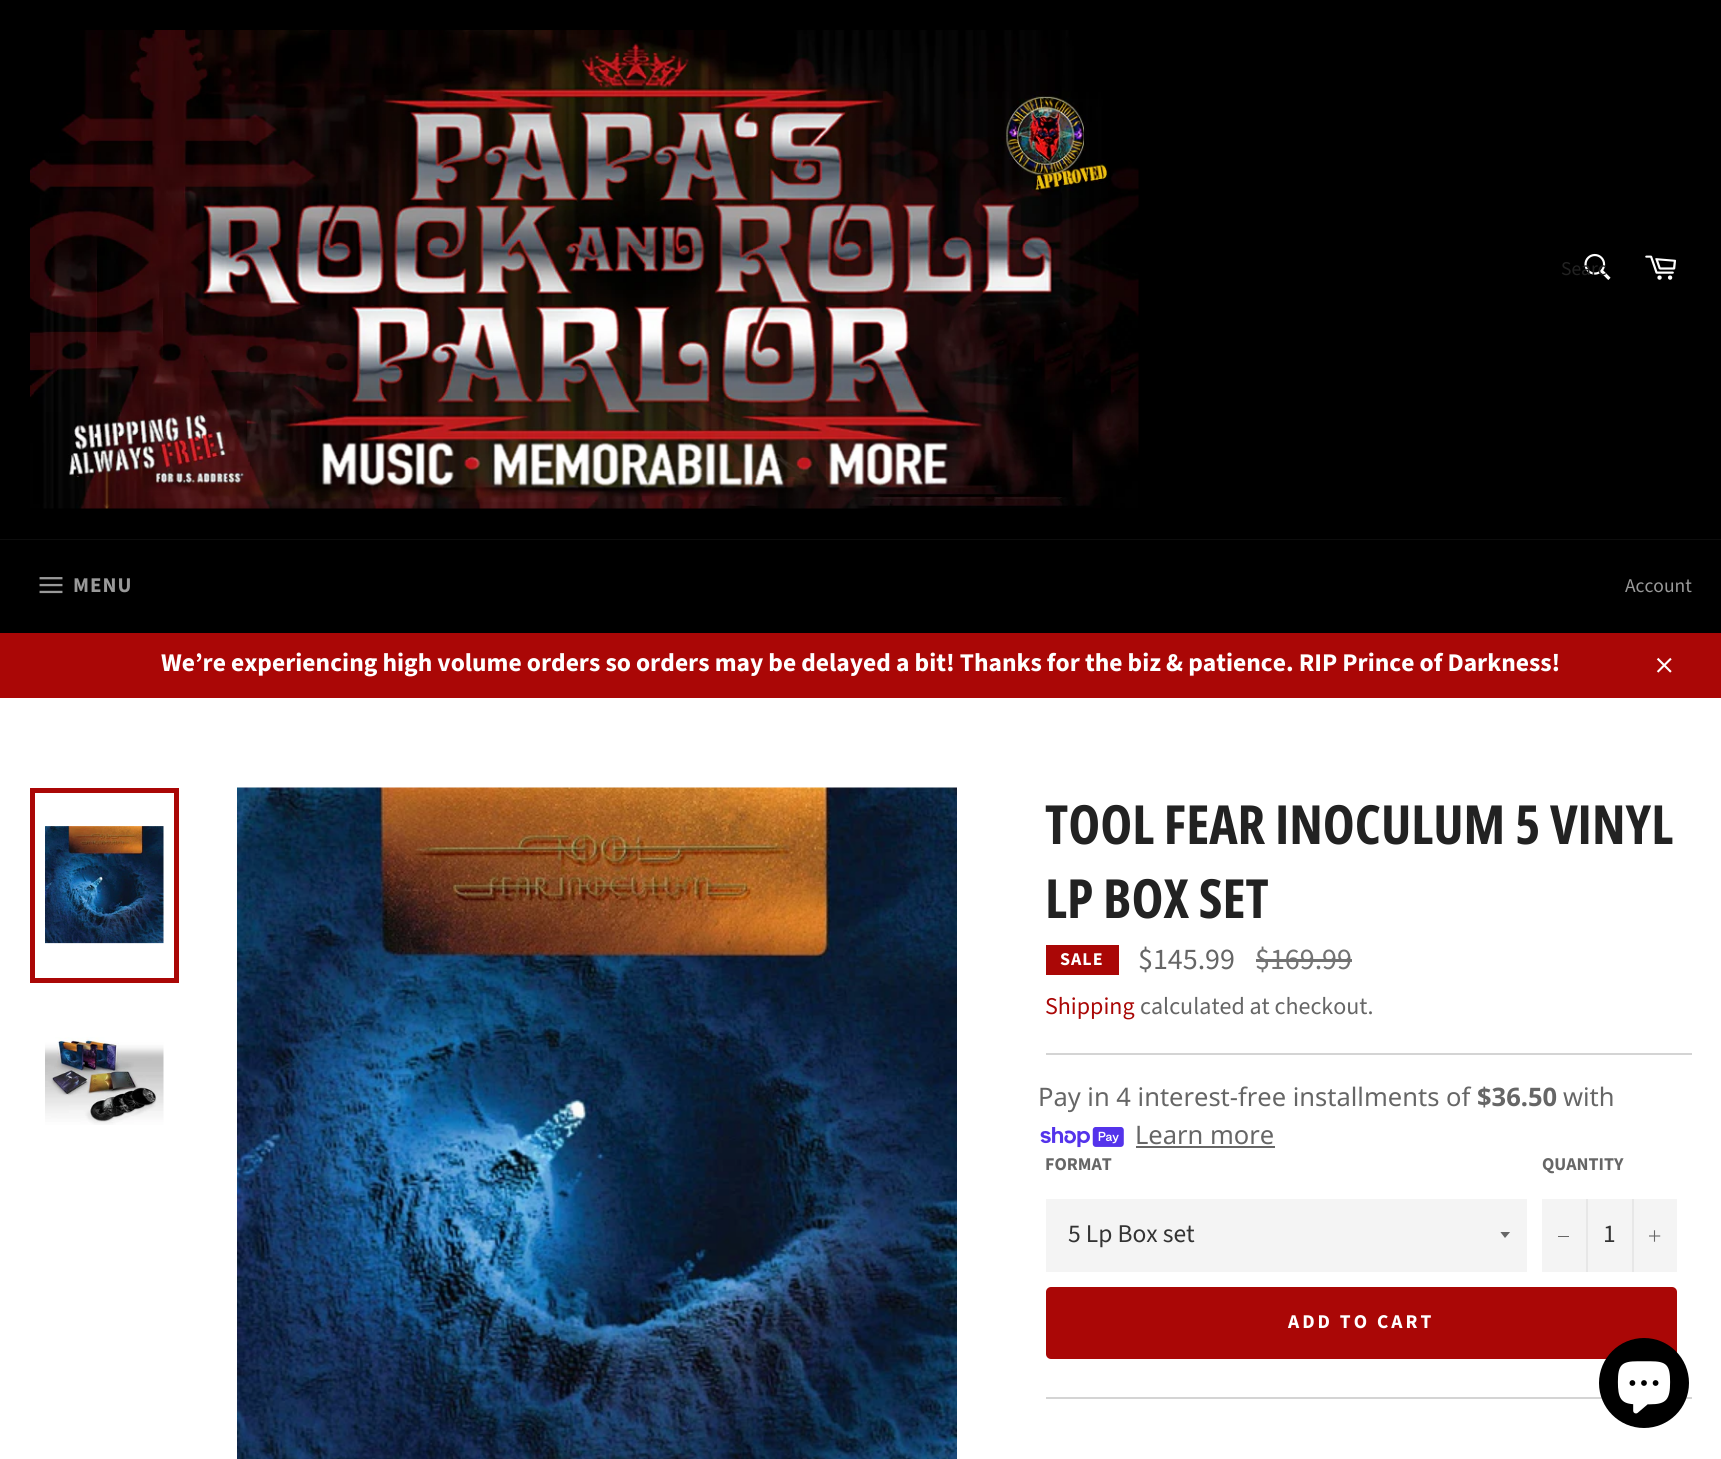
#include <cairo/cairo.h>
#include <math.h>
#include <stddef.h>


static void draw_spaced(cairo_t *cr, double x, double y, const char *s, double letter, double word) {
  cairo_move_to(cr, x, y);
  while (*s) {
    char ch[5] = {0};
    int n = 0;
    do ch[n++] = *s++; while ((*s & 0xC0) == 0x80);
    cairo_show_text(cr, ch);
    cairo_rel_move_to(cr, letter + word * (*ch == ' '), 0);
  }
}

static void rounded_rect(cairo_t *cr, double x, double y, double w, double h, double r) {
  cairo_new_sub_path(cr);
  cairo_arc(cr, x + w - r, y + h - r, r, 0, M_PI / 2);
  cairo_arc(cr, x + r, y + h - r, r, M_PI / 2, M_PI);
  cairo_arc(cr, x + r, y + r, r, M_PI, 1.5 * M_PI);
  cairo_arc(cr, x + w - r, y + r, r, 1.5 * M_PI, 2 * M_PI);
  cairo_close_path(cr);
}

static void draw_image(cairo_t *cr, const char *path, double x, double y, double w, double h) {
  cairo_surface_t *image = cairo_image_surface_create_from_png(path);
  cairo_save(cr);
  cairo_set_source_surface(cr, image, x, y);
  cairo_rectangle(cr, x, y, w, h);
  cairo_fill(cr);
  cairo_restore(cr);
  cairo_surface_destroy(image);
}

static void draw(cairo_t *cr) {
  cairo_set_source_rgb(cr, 0, 0, 0);
  cairo_paint(cr);
  draw_image(cr, "images/1.png", 30, 30, 1109, 479);
  draw_image(cr, "images/2.png", 1584, 253, 27, 27);
  draw_image(cr, "images/3.png", 1645, 255, 31, 25);
  cairo_set_source_rgb(cr, 13 / 255.0, 13 / 255.0, 13 / 255.0);
  cairo_rectangle(cr, 0, 539, 1721, 1);
  cairo_fill(cr);
  draw_image(cr, "images/4.png", 39, 577, 24, 17);
  cairo_set_source_rgb(cr, 170 / 255.0, 7 / 255.0, 6 / 255.0);
  cairo_rectangle(cr, 0, 633, 1721, 65);
  cairo_fill(cr);
  draw_image(cr, "images/5.png", 1656, 657, 16, 16);
  cairo_set_source_rgb(cr, 1, 1, 1);
  cairo_rectangle(cr, 0, 698, 1721, 761);
  cairo_fill(cr);
  draw_image(cr, "images/6.png", 45, 826, 119, 118);
  cairo_rectangle(cr, 32.5, 790.5, 144, 190);
  cairo_set_source_rgb(cr, 170 / 255.0, 7 / 255.0, 6 / 255.0);
  cairo_set_line_width(cr, 5);
  cairo_stroke(cr);
  draw_image(cr, "images/7.png", 45, 1037, 119, 88);
  draw_image(cr, "images/8.png", 237, 787, 720, 672);
  cairo_rectangle(cr, 1046, 945, 73, 30);
  cairo_fill(cr);
  cairo_set_source_rgb(cr, 115 / 255.0, 115 / 255.0, 115 / 255.0);
  cairo_rectangle(cr, 1256, 959, 96, 3);
  cairo_fill(cr);
  cairo_set_source_rgb(cr, 212 / 255.0, 212 / 255.0, 212 / 255.0);
  cairo_rectangle(cr, 1046, 1053, 646, 2);
  cairo_fill(cr);
  draw_image(cr, "images/9.png", 1040, 1127, 84, 21);
  cairo_set_source_rgb(cr, 102 / 255.0, 102 / 255.0, 102 / 255.0);
  cairo_rectangle(cr, 1136, 1146, 139, 2);
  cairo_fill(cr);
  cairo_set_source_rgb(cr, 244 / 255.0, 244 / 255.0, 244 / 255.0);
  cairo_rectangle(cr, 1046, 1199, 481, 73);
  cairo_fill(cr);
  cairo_save(cr);
  cairo_rectangle(cr, 1500, 1232, 12, 7);
  cairo_clip(cr);
  cairo_set_source_rgb(cr, 102 / 255.0, 102 / 255.0, 102 / 255.0);
  cairo_new_path(cr);
  cairo_move_to(cr, 1500, 1231.5);
  cairo_line_to(cr, 1505, 1238);
  cairo_line_to(cr, 1510.5, 1231.5);
  cairo_close_path(cr);
  cairo_fill(cr);
  cairo_restore(cr);
  cairo_rectangle(cr, 1542, 1199, 135, 73);
  cairo_fill(cr);
  cairo_set_source_rgb(cr, 231 / 255.0, 231 / 255.0, 231 / 255.0);
  cairo_rectangle(cr, 1586, 1199, 2, 73);
  cairo_fill(cr);
  cairo_set_source_rgb(cr, 102 / 255.0, 102 / 255.0, 102 / 255.0);
  cairo_rectangle(cr, 1558, 1236, 11, 1);
  cairo_fill(cr);
  cairo_set_source_rgb(cr, 231 / 255.0, 231 / 255.0, 231 / 255.0);
  cairo_rectangle(cr, 1632, 1199, 2, 73);
  cairo_fill(cr);
  draw_image(cr, "images/10.png", 1649, 1230, 12, 12);
  cairo_set_source_rgb(cr, 170 / 255.0, 7 / 255.0, 6 / 255.0);
  rounded_rect(cr, 1046, 1287, 631, 72, 5);
  cairo_fill(cr);
  cairo_set_source_rgb(cr, 212 / 255.0, 212 / 255.0, 212 / 255.0);
  cairo_rectangle(cr, 1046, 1397, 646, 2);
  cairo_fill(cr);
  cairo_set_source_rgb(cr, 0, 0, 0);
  cairo_arc(cr, 1644, 1383, 45, 0, 2 * M_PI);
  cairo_fill(cr);
  draw_image(cr, "images/11.png", 1617, 1361, 54, 53);
  cairo_select_font_face(cr, "Source Sans Pro", CAIRO_FONT_SLANT_NORMAL, CAIRO_FONT_WEIGHT_NORMAL);
  cairo_set_font_size(cr, 19.5);
  cairo_set_source_rgb(cr, 34 / 255.0, 34 / 255.0, 34 / 255.0);
  cairo_move_to(cr, 1561, 275);
  cairo_show_text(cr, "Searc");
  cairo_select_font_face(cr, "Source Sans Pro", CAIRO_FONT_SLANT_NORMAL, CAIRO_FONT_WEIGHT_BOLD);
  cairo_set_font_size(cr, 21);
  cairo_set_source_rgb(cr, 153 / 255.0, 153 / 255.0, 153 / 255.0);
  draw_spaced(cr, 73, 592, "MENU", 1, 0);
  cairo_select_font_face(cr, "Source Sans Pro", CAIRO_FONT_SLANT_NORMAL, CAIRO_FONT_WEIGHT_NORMAL);
  cairo_set_font_size(cr, 19.5);
  cairo_move_to(cr, 1625, 592);
  cairo_show_text(cr, "Account");
  cairo_select_font_face(cr, "Source Sans Pro", CAIRO_FONT_SLANT_NORMAL, CAIRO_FONT_WEIGHT_BOLD);
  cairo_set_font_size(cr, 25.5);
  cairo_set_source_rgb(cr, 1, 1, 1);
  cairo_move_to(cr, 161, 671);
  cairo_show_text(cr, "We’re experiencing high volume orders so orders may be delayed a bit! Thanks for the biz & patience. RIP Prince of Darkness!");
  cairo_select_font_face(cr, "Open Sans Condensed", CAIRO_FONT_SLANT_NORMAL, CAIRO_FONT_WEIGHT_BOLD);
  cairo_set_font_size(cr, 54);
  cairo_set_source_rgb(cr, 34 / 255.0, 34 / 255.0, 34 / 255.0);
  cairo_move_to(cr, 1045, 844);
  cairo_show_text(cr, "TOOL FEAR INOCULUM 5 VINYL");
  cairo_move_to(cr, 1045, 918);
  cairo_show_text(cr, "LP BOX SET");
  cairo_select_font_face(cr, "Source Sans Pro", CAIRO_FONT_SLANT_NORMAL, CAIRO_FONT_WEIGHT_BOLD);
  cairo_set_font_size(cr, 18);
  cairo_set_source_rgb(cr, 1, 1, 1);
  draw_spaced(cr, 1060, 965, "SALE", 1, 0);
  cairo_select_font_face(cr, "Source Sans Pro", CAIRO_FONT_SLANT_NORMAL, CAIRO_FONT_WEIGHT_NORMAL);
  cairo_set_font_size(cr, 30);
  cairo_set_source_rgb(cr, 102 / 255.0, 102 / 255.0, 102 / 255.0);
  cairo_move_to(cr, 1138, 969);
  cairo_show_text(cr, "$145.99");
  cairo_set_source_rgb(cr, 115 / 255.0, 115 / 255.0, 115 / 255.0);
  cairo_move_to(cr, 1255, 969);
  cairo_show_text(cr, "$169.99");
  cairo_set_font_size(cr, 24);
  cairo_set_source_rgb(cr, 170 / 255.0, 7 / 255.0, 6 / 255.0);
  cairo_move_to(cr, 1045, 1014);
  cairo_show_text(cr, "Shipping");
  cairo_set_source_rgb(cr, 102 / 255.0, 102 / 255.0, 102 / 255.0);
  cairo_move_to(cr, 1140, 1014);
  cairo_show_text(cr, "calculated at checkout.");
  cairo_select_font_face(cr, "Noto Sans", CAIRO_FONT_SLANT_NORMAL, CAIRO_FONT_WEIGHT_NORMAL);
  cairo_set_font_size(cr, 25.5);
  cairo_move_to(cr, 1038, 1106);
  cairo_show_text(cr, "Pay in 4 interest-free installments of");
  cairo_select_font_face(cr, "Noto Sans", CAIRO_FONT_SLANT_NORMAL, CAIRO_FONT_WEIGHT_BOLD);
  cairo_move_to(cr, 1477, 1106);
  cairo_show_text(cr, "$36.50");
  cairo_select_font_face(cr, "Noto Sans", CAIRO_FONT_SLANT_NORMAL, CAIRO_FONT_WEIGHT_NORMAL);
  cairo_move_to(cr, 1563, 1106);
  cairo_show_text(cr, "with");
  cairo_move_to(cr, 1135, 1144);
  cairo_show_text(cr, "Learn more");
  cairo_select_font_face(cr, "Source Sans Pro", CAIRO_FONT_SLANT_NORMAL, CAIRO_FONT_WEIGHT_BOLD);
  cairo_set_font_size(cr, 18);
  cairo_move_to(cr, 1045, 1170);
  cairo_show_text(cr, "FORMAT");
  cairo_select_font_face(cr, "Source Sans Pro", CAIRO_FONT_SLANT_NORMAL, CAIRO_FONT_WEIGHT_NORMAL);
  cairo_set_font_size(cr, 25.5);
  cairo_set_source_rgb(cr, 51 / 255.0, 51 / 255.0, 51 / 255.0);
  cairo_move_to(cr, 1068, 1242);
  cairo_show_text(cr, "5 Lp Box set");
  cairo_select_font_face(cr, "Source Sans Pro", CAIRO_FONT_SLANT_NORMAL, CAIRO_FONT_WEIGHT_BOLD);
  cairo_set_font_size(cr, 18);
  cairo_set_source_rgb(cr, 102 / 255.0, 102 / 255.0, 102 / 255.0);
  cairo_move_to(cr, 1542, 1170);
  cairo_show_text(cr, "QUANTITY");
  cairo_select_font_face(cr, "Source Sans Pro", CAIRO_FONT_SLANT_NORMAL, CAIRO_FONT_WEIGHT_NORMAL);
  cairo_set_font_size(cr, 25.5);
  cairo_set_source_rgb(cr, 51 / 255.0, 51 / 255.0, 51 / 255.0);
  cairo_move_to(cr, 1603, 1242);
  cairo_show_text(cr, "1");
  cairo_select_font_face(cr, "Source Sans Pro", CAIRO_FONT_SLANT_NORMAL, CAIRO_FONT_WEIGHT_BOLD);
  cairo_set_font_size(cr, 19.5);
  cairo_set_source_rgb(cr, 1, 1, 1);
  draw_spaced(cr, 1288, 1328, "ADD TO CART", 3, 0);
}

int main(void) {
  cairo_surface_t *surface = cairo_image_surface_create(CAIRO_FORMAT_RGB24, 1721, 1459);
  cairo_t *cr = cairo_create(surface);
  cairo_font_options_t *options = cairo_font_options_create();
  cairo_font_options_set_hint_metrics(options, CAIRO_HINT_METRICS_OFF);
  cairo_font_options_set_hint_style(options, CAIRO_HINT_STYLE_NONE);
  cairo_set_font_options(cr, options);
  cairo_set_miter_limit(cr, 4);
  draw(cr);
  cairo_surface_write_to_png(surface, "out.png");
  cairo_font_options_destroy(options);
  cairo_destroy(cr);
  cairo_surface_destroy(surface);
  return 0;
}
